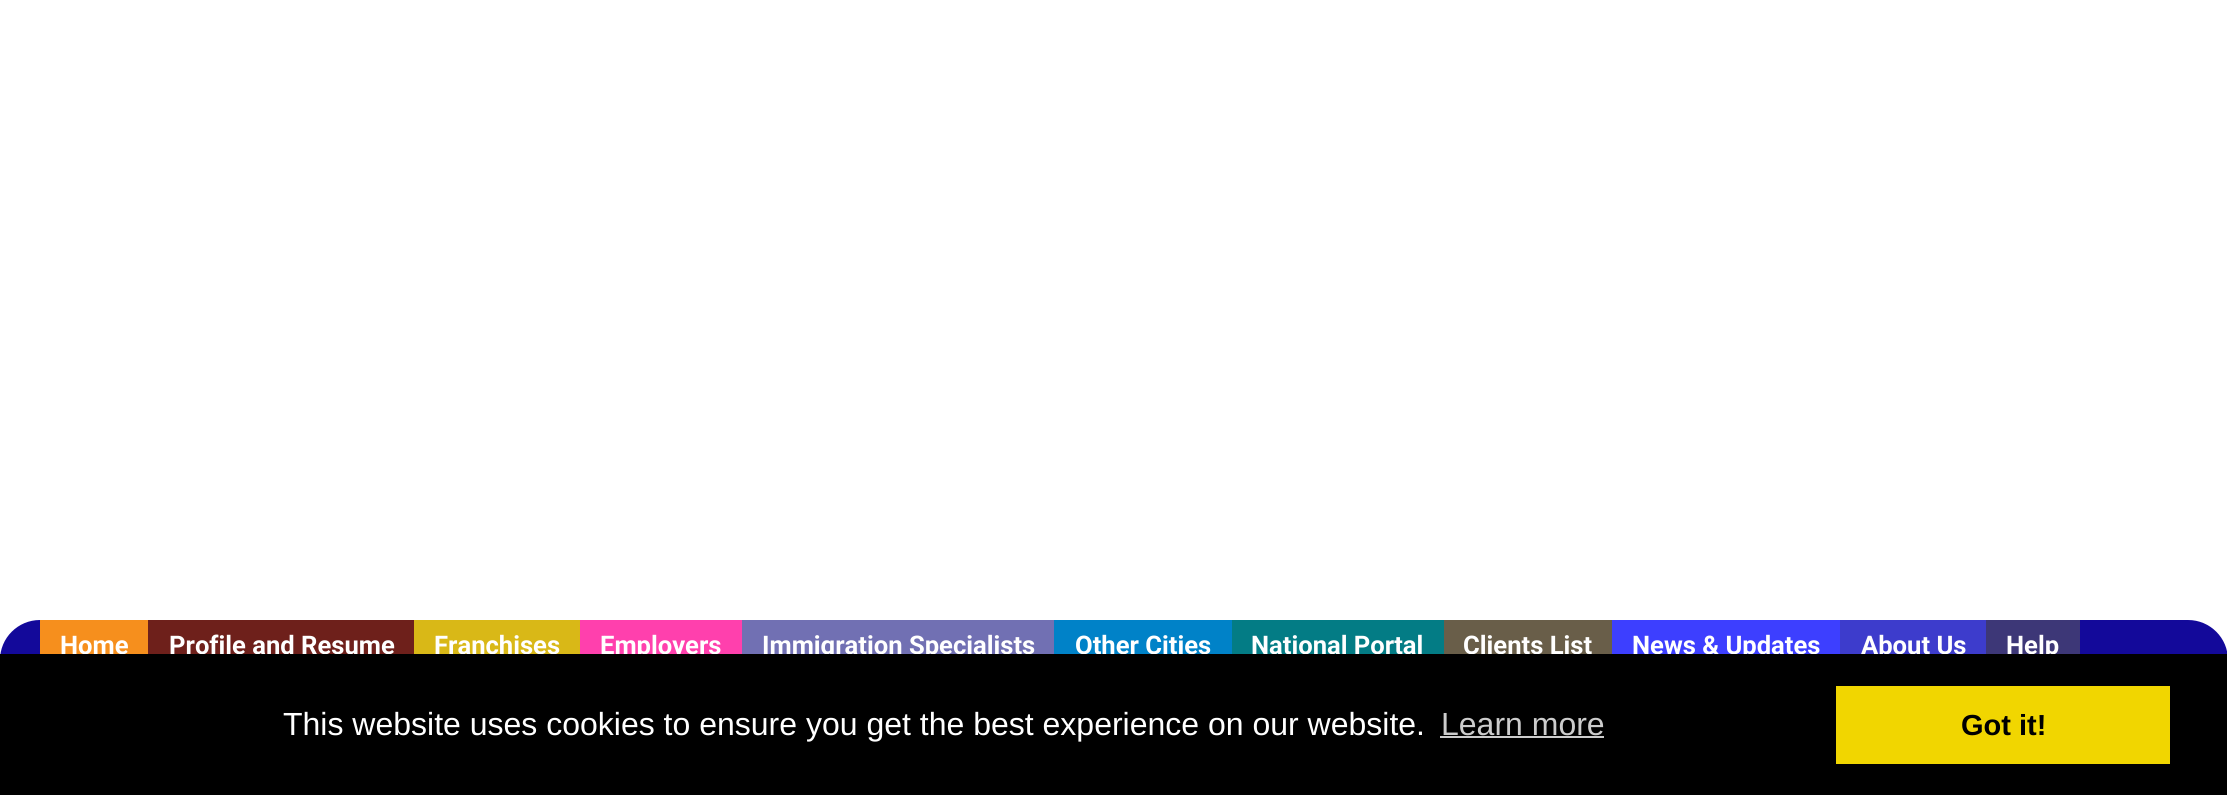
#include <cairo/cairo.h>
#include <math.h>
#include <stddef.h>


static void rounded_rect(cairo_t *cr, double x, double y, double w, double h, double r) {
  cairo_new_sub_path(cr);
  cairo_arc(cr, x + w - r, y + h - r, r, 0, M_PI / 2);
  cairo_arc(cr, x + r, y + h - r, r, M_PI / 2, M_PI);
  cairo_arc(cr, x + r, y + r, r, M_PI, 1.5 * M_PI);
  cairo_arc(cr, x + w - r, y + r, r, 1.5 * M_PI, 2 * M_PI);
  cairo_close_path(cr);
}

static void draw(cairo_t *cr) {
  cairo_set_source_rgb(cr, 1, 1, 1);
  cairo_paint(cr);
  cairo_set_source_rgb(cr, 19 / 255.0, 9 / 255.0, 154 / 255.0);
  rounded_rect(cr, 0, 620, 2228, 100, 40);
  cairo_fill(cr);
  cairo_set_source_rgb(cr, 246 / 255.0, 143 / 255.0, 29 / 255.0);
  cairo_rectangle(cr, 40, 620, 108, 34);
  cairo_fill(cr);
  cairo_set_source_rgb(cr, 110 / 255.0, 32 / 255.0, 27 / 255.0);
  cairo_rectangle(cr, 148, 620, 266, 34);
  cairo_fill(cr);
  cairo_set_source_rgb(cr, 217 / 255.0, 184 / 255.0, 23 / 255.0);
  cairo_rectangle(cr, 414, 620, 166, 34);
  cairo_fill(cr);
  cairo_set_source_rgb(cr, 1, 64 / 255.0, 173 / 255.0);
  cairo_rectangle(cr, 580, 620, 162, 34);
  cairo_fill(cr);
  cairo_set_source_rgb(cr, 113 / 255.0, 112 / 255.0, 179 / 255.0);
  cairo_rectangle(cr, 742, 620, 312, 34);
  cairo_fill(cr);
  cairo_set_source_rgb(cr, 0, 130 / 255.0, 200 / 255.0);
  cairo_rectangle(cr, 1054, 620, 178, 34);
  cairo_fill(cr);
  cairo_set_source_rgb(cr, 3 / 255.0, 124 / 255.0, 133 / 255.0);
  cairo_rectangle(cr, 1232, 620, 212, 34);
  cairo_fill(cr);
  cairo_set_source_rgb(cr, 105 / 255.0, 94 / 255.0, 73 / 255.0);
  cairo_rectangle(cr, 1444, 620, 168, 34);
  cairo_fill(cr);
  cairo_set_source_rgb(cr, 61 / 255.0, 63 / 255.0, 1);
  cairo_rectangle(cr, 1612, 620, 228, 34);
  cairo_fill(cr);
  cairo_set_source_rgb(cr, 61 / 255.0, 60 / 255.0, 204 / 255.0);
  cairo_rectangle(cr, 1840, 620, 146, 34);
  cairo_fill(cr);
  cairo_set_source_rgb(cr, 61 / 255.0, 55 / 255.0, 119 / 255.0);
  cairo_rectangle(cr, 1986, 620, 94, 34);
  cairo_fill(cr);
  cairo_select_font_face(cr, "Roboto", CAIRO_FONT_SLANT_NORMAL, CAIRO_FONT_WEIGHT_BOLD);
  cairo_set_font_size(cr, 25.6);
  cairo_set_source_rgb(cr, 1, 1, 1);
  cairo_move_to(cr, 60, 654);
  cairo_show_text(cr, "Home");
  cairo_move_to(cr, 169, 654);
  cairo_show_text(cr, "Profile and Resume");
  cairo_move_to(cr, 434, 654);
  cairo_show_text(cr, "Franchises");
  cairo_move_to(cr, 600, 654);
  cairo_show_text(cr, "Employers");
  cairo_move_to(cr, 762, 654);
  cairo_show_text(cr, "Immigration Specialists");
  cairo_move_to(cr, 1075, 654);
  cairo_show_text(cr, "Other Cities");
  cairo_move_to(cr, 1251, 654);
  cairo_show_text(cr, "National Portal");
  cairo_move_to(cr, 1463, 654);
  cairo_show_text(cr, "Clients List");
  cairo_move_to(cr, 1632, 654);
  cairo_show_text(cr, "News & Updates");
  cairo_move_to(cr, 1861, 654);
  cairo_show_text(cr, "About Us");
  cairo_move_to(cr, 2006, 654);
  cairo_show_text(cr, "Help");
  cairo_set_source_rgb(cr, 0, 0, 0);
  cairo_rectangle(cr, 0, 654, 2227, 141);
  cairo_fill(cr);
  cairo_select_font_face(cr, "Liberation Sans", CAIRO_FONT_SLANT_NORMAL, CAIRO_FONT_WEIGHT_NORMAL);
  cairo_set_font_size(cr, 32);
  cairo_set_source_rgb(cr, 1, 1, 1);
  cairo_move_to(cr, 283, 735);
  cairo_show_text(cr, "This website uses cookies to ensure you get the best experience on our website.");
  cairo_set_source_rgb(cr, 204 / 255.0, 204 / 255.0, 204 / 255.0);
  cairo_move_to(cr, 1441, 735);
  cairo_show_text(cr, "Learn more");
  cairo_rectangle(cr, 1440, 736, 164, 2);
  cairo_fill(cr);
  cairo_set_source_rgb(cr, 241 / 255.0, 214 / 255.0, 0);
  cairo_rectangle(cr, 1836, 686, 334, 78);
  cairo_fill(cr);
  cairo_select_font_face(cr, "Liberation Sans", CAIRO_FONT_SLANT_NORMAL, CAIRO_FONT_WEIGHT_BOLD);
  cairo_set_font_size(cr, 29);
  cairo_set_source_rgb(cr, 0, 0, 0);
  cairo_move_to(cr, 1961, 735);
  cairo_show_text(cr, "Got it!");
}

int main(void) {
  cairo_surface_t *surface = cairo_image_surface_create(CAIRO_FORMAT_RGB24, 2227, 795);
  cairo_t *cr = cairo_create(surface);
  cairo_font_options_t *options = cairo_font_options_create();
  cairo_font_options_set_hint_metrics(options, CAIRO_HINT_METRICS_OFF);
  cairo_font_options_set_hint_style(options, CAIRO_HINT_STYLE_NONE);
  cairo_set_font_options(cr, options);
  cairo_set_miter_limit(cr, 4);
  draw(cr);
  cairo_surface_write_to_png(surface, "out.png");
  cairo_font_options_destroy(options);
  cairo_destroy(cr);
  cairo_surface_destroy(surface);
  return 0;
}
